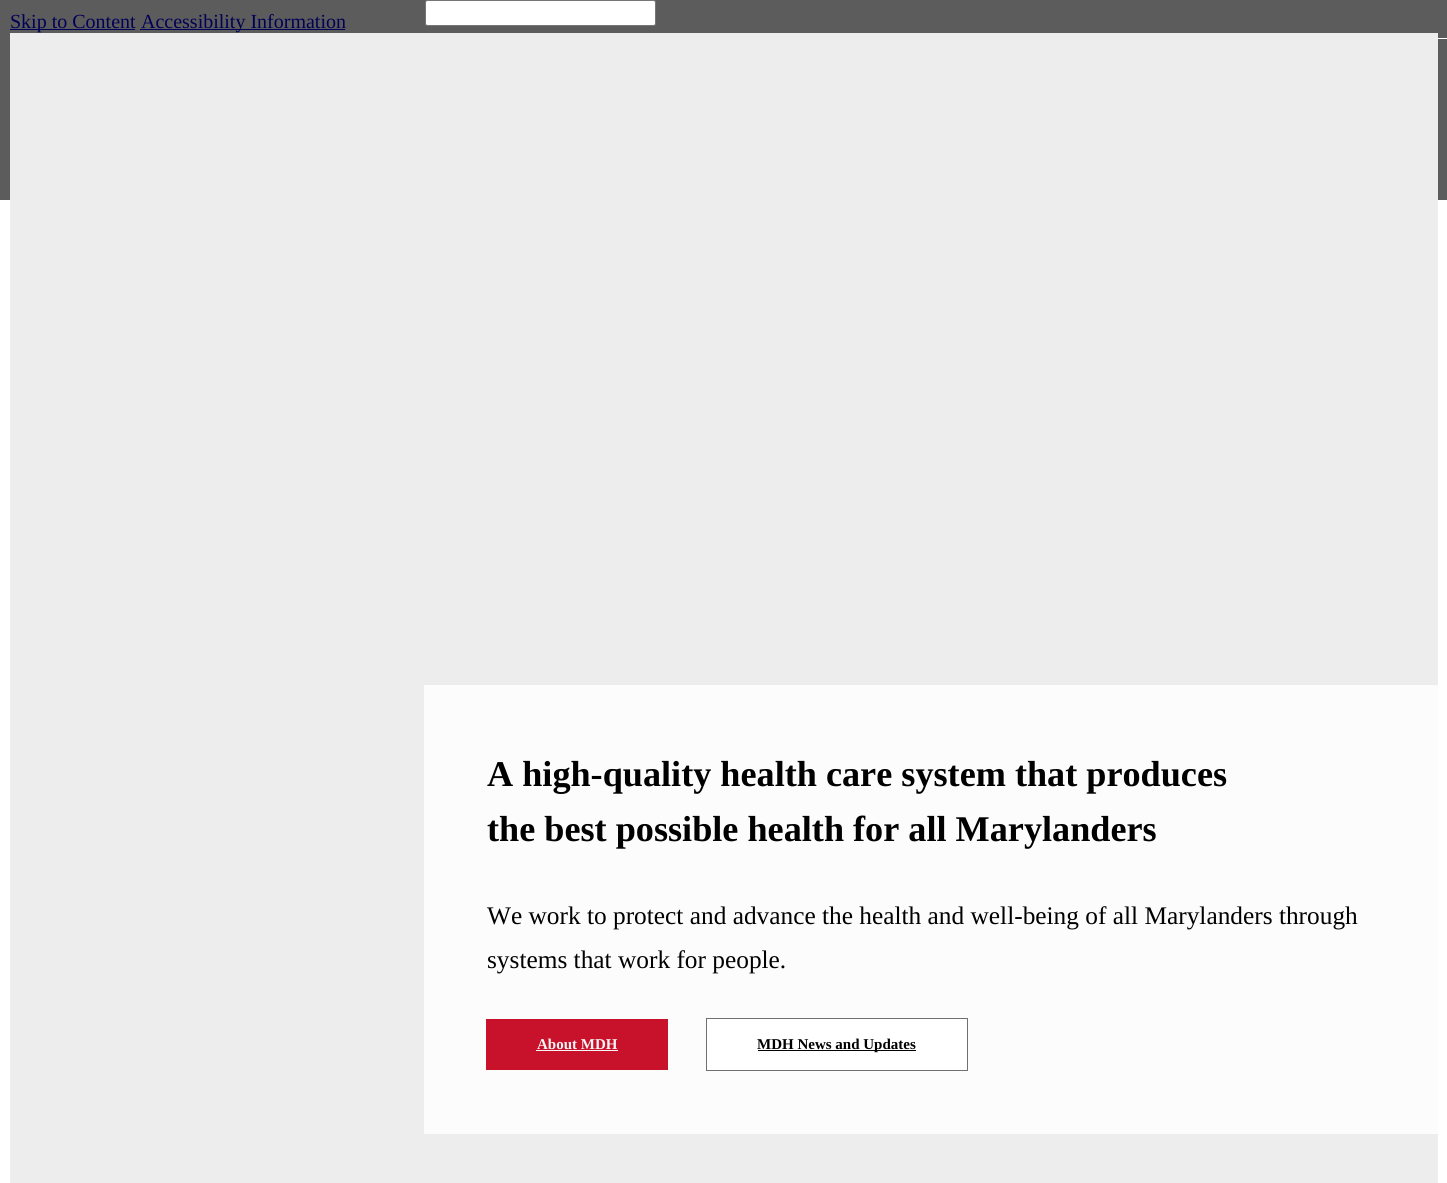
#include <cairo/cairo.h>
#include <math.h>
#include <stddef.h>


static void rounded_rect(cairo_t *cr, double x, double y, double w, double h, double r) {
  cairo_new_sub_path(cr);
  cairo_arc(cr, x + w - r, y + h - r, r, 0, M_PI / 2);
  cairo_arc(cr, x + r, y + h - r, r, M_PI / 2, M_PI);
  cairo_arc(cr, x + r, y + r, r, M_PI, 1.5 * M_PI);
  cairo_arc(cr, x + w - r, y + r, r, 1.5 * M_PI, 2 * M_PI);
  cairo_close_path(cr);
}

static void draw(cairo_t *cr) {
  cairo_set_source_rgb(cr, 1, 1, 1);
  cairo_paint(cr);
  cairo_set_source_rgb(cr, 92 / 255.0, 92 / 255.0, 92 / 255.0);
  cairo_rectangle(cr, 0, 0, 1447, 200);
  cairo_fill(cr);
  cairo_set_source_rgb(cr, 0, 0, 86 / 255.0);
  cairo_rectangle(cr, 10, 29, 125, 1);
  cairo_fill(cr);
  cairo_rectangle(cr, 140, 29, 205, 1);
  cairo_fill(cr);
  cairo_set_source_rgb(cr, 1, 1, 1);
  cairo_rectangle(cr, 1438, 38, 9, 1);
  cairo_fill(cr);
  rounded_rect(cr, 425.5, 0.5, 230, 25, 2);
  cairo_fill_preserve(cr);
  cairo_set_source_rgb(cr, 118 / 255.0, 118 / 255.0, 118 / 255.0);
  cairo_set_line_width(cr, 1);
  cairo_stroke(cr);
  cairo_set_source_rgb(cr, 237 / 255.0, 237 / 255.0, 237 / 255.0);
  cairo_rectangle(cr, 10, 33, 1428, 1150);
  cairo_fill(cr);
  cairo_set_source_rgb(cr, 252 / 255.0, 252 / 255.0, 252 / 255.0);
  cairo_rectangle(cr, 424, 685, 1014, 449);
  cairo_fill(cr);
  cairo_set_source_rgb(cr, 200 / 255.0, 18 / 255.0, 44 / 255.0);
  cairo_rectangle(cr, 486, 1019, 182, 51);
  cairo_fill(cr);
  cairo_set_source_rgb(cr, 247 / 255.0, 245 / 255.0, 245 / 255.0);
  cairo_rectangle(cr, 536, 1050, 82, 1);
  cairo_fill(cr);
  cairo_set_source_rgb(cr, 1, 1, 1);
  cairo_rectangle(cr, 706.5, 1018.5, 261, 52);
  cairo_fill_preserve(cr);
  cairo_set_source_rgb(cr, 112 / 255.0, 112 / 255.0, 112 / 255.0);
  cairo_stroke(cr);
  cairo_set_source_rgb(cr, 0, 0, 0);
  cairo_rectangle(cr, 758, 1050, 158, 1);
  cairo_fill(cr);
  cairo_select_font_face(cr, "Liberation Serif", CAIRO_FONT_SLANT_NORMAL, CAIRO_FONT_WEIGHT_NORMAL);
  cairo_set_font_size(cr, 20);
  cairo_set_source_rgb(cr, 0, 0, 86 / 255.0);
  cairo_move_to(cr, 10, 28);
  cairo_show_text(cr, "Skip to Content");
  cairo_move_to(cr, 141, 28);
  cairo_show_text(cr, "Accessibility Information");
  cairo_select_font_face(cr, "Liberation Serif", CAIRO_FONT_SLANT_NORMAL, CAIRO_FONT_WEIGHT_BOLD);
  cairo_set_font_size(cr, 36.2);
  cairo_set_source_rgb(cr, 0, 0, 0);
  cairo_move_to(cr, 487, 786);
  cairo_show_text(cr, "A high-quality health care system that produces");
  cairo_move_to(cr, 487, 841);
  cairo_show_text(cr, "the best possible health for all Marylanders");
  cairo_select_font_face(cr, "Liberation Serif", CAIRO_FONT_SLANT_NORMAL, CAIRO_FONT_WEIGHT_NORMAL);
  cairo_set_font_size(cr, 25.35);
  cairo_move_to(cr, 487, 924);
  cairo_show_text(cr, "We work to protect and advance the health and well-being of all Marylanders through");
  cairo_move_to(cr, 487, 968);
  cairo_show_text(cr, "systems that work for people.");
  cairo_select_font_face(cr, "Liberation Serif", CAIRO_FONT_SLANT_NORMAL, CAIRO_FONT_WEIGHT_BOLD);
  cairo_set_font_size(cr, 15);
  cairo_set_source_rgb(cr, 247 / 255.0, 245 / 255.0, 245 / 255.0);
  cairo_move_to(cr, 537, 1049);
  cairo_show_text(cr, "About MDH");
  cairo_set_source_rgb(cr, 0, 0, 0);
  cairo_move_to(cr, 757, 1049);
  cairo_show_text(cr, "MDH News and Updates");
}

int main(void) {
  cairo_surface_t *surface = cairo_image_surface_create(CAIRO_FORMAT_RGB24, 1447, 1183);
  cairo_t *cr = cairo_create(surface);
  cairo_font_options_t *options = cairo_font_options_create();
  cairo_font_options_set_hint_metrics(options, CAIRO_HINT_METRICS_OFF);
  cairo_font_options_set_hint_style(options, CAIRO_HINT_STYLE_NONE);
  cairo_set_font_options(cr, options);
  cairo_set_miter_limit(cr, 4);
  draw(cr);
  cairo_surface_write_to_png(surface, "out.png");
  cairo_font_options_destroy(options);
  cairo_destroy(cr);
  cairo_surface_destroy(surface);
  return 0;
}
